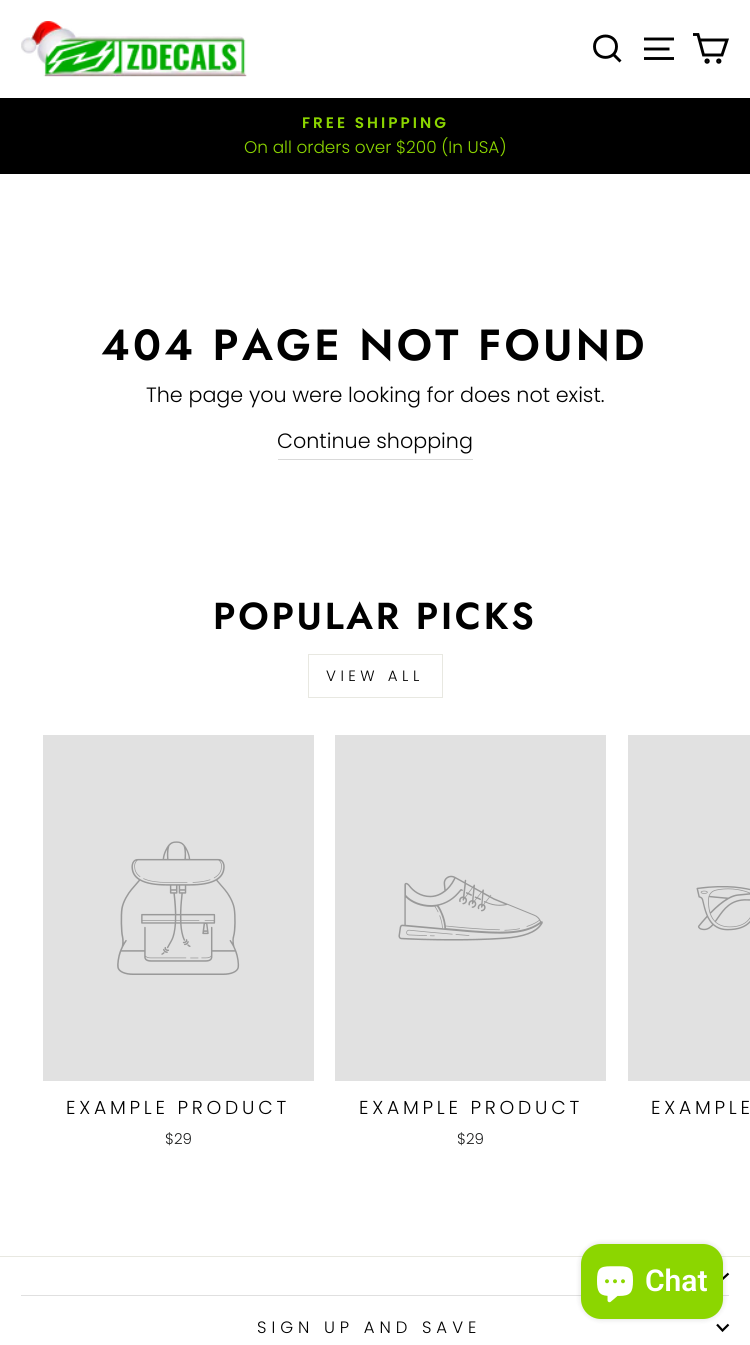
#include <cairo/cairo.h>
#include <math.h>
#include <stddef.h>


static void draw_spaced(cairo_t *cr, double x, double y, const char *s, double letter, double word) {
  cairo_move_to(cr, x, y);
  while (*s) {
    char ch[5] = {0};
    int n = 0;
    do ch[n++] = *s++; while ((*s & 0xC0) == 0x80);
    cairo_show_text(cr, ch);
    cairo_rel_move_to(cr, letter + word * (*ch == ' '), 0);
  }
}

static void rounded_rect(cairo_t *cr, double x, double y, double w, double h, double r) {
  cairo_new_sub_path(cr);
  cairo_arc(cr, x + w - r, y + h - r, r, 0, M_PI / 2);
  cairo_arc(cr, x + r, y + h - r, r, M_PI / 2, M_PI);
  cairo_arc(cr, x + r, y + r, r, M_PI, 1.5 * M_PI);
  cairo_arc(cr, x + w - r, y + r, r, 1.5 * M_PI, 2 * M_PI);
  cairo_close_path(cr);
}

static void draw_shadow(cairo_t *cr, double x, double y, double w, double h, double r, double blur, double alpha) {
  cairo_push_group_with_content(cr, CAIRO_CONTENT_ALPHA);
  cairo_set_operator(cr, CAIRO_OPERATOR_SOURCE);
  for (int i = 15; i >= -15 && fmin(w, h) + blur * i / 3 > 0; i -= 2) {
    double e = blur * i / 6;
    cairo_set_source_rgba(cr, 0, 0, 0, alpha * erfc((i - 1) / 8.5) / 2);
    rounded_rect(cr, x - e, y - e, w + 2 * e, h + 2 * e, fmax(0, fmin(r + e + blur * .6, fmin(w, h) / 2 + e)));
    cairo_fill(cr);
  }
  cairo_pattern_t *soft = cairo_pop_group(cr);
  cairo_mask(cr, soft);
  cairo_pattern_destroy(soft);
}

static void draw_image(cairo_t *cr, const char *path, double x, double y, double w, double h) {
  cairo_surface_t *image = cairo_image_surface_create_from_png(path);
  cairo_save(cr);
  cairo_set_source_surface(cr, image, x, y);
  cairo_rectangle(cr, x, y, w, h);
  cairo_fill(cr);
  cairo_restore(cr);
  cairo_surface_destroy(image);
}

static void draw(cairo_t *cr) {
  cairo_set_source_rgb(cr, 1, 1, 1);
  cairo_paint(cr);
  cairo_set_source_rgb(cr, 0, 0, 0);
  cairo_rectangle(cr, 0, 98, 750, 76);
  cairo_fill(cr);
  cairo_set_source_rgb(cr, 0, 0, 0);
  draw_shadow(cr, 0, 0, 750, 98, 0, 0.5, 0.2);
  cairo_set_source_rgb(cr, 1, 1, 1);
  cairo_rectangle(cr, 0, 0, 750, 98);
  cairo_fill(cr);
  draw_image(cr, "images/1.png", 21, 21, 226, 56);
  cairo_new_path(cr);
  cairo_move_to(cr, 616.5, 46.5);
  cairo_curve_to(cr, 616.5, 61, 594.5, 61, 594.5, 46.5);
  cairo_curve_to(cr, 594.5, 32.5, 616.5, 32.5, 616.5, 46.5);
  cairo_close_path(cr);
  cairo_move_to(cr, 620.5, 61.5);
  cairo_line_to(cr, 613.5, 54.5);
  cairo_set_source_rgb(cr, 0, 0, 0);
  cairo_set_line_width(cr, 2.9);
  cairo_stroke(cr);
  cairo_new_path(cr);
  cairo_move_to(cr, 644, 39);
  cairo_line_to(cr, 674, 39);
  cairo_move_to(cr, 644, 49);
  cairo_line_to(cr, 669.5, 49);
  cairo_move_to(cr, 644, 58.5);
  cairo_line_to(cr, 674, 58.5);
  cairo_stroke(cr);
  cairo_new_path(cr);
  cairo_move_to(cr, 699.5, 40);
  cairo_line_to(cr, 727, 40);
  cairo_line_to(cr, 722, 55);
  cairo_line_to(cr, 703.5, 55);
  cairo_line_to(cr, 698, 34.5);
  cairo_line_to(cr, 693, 34.5);
  cairo_stroke(cr);
  cairo_arc(cr, 707.1, 61.1, 1.2, 0, 2 * M_PI);
  cairo_stroke(cr);
  cairo_arc(cr, 718.8, 61.1, 1.2, 0, 2 * M_PI);
  cairo_stroke(cr);
  cairo_set_source_rgb(cr, 217 / 255.0, 217 / 255.0, 217 / 255.0);
  cairo_rectangle(cr, 278, 459, 195, 1);
  cairo_fill(cr);
  cairo_rectangle(cr, 308.5, 654.5, 134, 43);
  cairo_set_source_rgb(cr, 232 / 255.0, 232 / 255.0, 225 / 255.0);
  cairo_set_line_width(cr, 1);
  cairo_stroke(cr);
  cairo_set_source_rgb(cr, 225 / 255.0, 225 / 255.0, 225 / 255.0);
  cairo_rectangle(cr, 43, 735, 271, 346);
  cairo_fill(cr);
  draw_image(cr, "images/2.png", 117, 841, 123, 134);
  cairo_rectangle(cr, 335, 735, 271, 346);
  cairo_fill(cr);
  draw_image(cr, "images/3.png", 398, 875, 145, 66);
  cairo_rectangle(cr, 628, 735, 122, 346);
  cairo_fill(cr);
  draw_image(cr, "images/4.png", 696, 886, 54, 45);
  cairo_set_source_rgb(cr, 232 / 255.0, 232 / 255.0, 225 / 255.0);
  cairo_rectangle(cr, 0, 1256, 750, 1);
  cairo_fill(cr);
  cairo_new_path(cr);
  cairo_move_to(cr, 717, 1273.5);
  cairo_line_to(cr, 722.5, 1279);
  cairo_line_to(cr, 728.5, 1273.5);
  cairo_set_source_rgb(cr, 0, 0, 0);
  cairo_set_line_width(cr, 2.2);
  cairo_stroke(cr);
  cairo_set_source_rgb(cr, 224 / 255.0, 224 / 255.0, 224 / 255.0);
  cairo_rectangle(cr, 21, 1295, 708, 1);
  cairo_fill(cr);
  cairo_new_path(cr);
  cairo_move_to(cr, 717, 1324.5);
  cairo_line_to(cr, 722.5, 1330.5);
  cairo_line_to(cr, 728.5, 1324.5);
  cairo_set_source_rgb(cr, 0, 0, 0);
  cairo_stroke(cr);
  cairo_set_source_rgb(cr, 0, 0, 0);
  draw_shadow(cr, 581, 1244, 142, 75, 20, 3, 0.15);
  cairo_set_source_rgb(cr, 140 / 255.0, 214 / 255.0, 0);
  rounded_rect(cr, 581, 1244, 142, 75, 20);
  cairo_fill(cr);
  draw_image(cr, "images/5.png", 597, 1266, 36, 37);
  cairo_select_font_face(cr, "Poppins SemiBold", CAIRO_FONT_SLANT_NORMAL, CAIRO_FONT_WEIGHT_NORMAL);
  cairo_set_font_size(cr, 15.25);
  draw_spaced(cr, 302, 128, "FREE SHIPPING", 3, 0);
  cairo_select_font_face(cr, "Poppins Light", CAIRO_FONT_SLANT_NORMAL, CAIRO_FONT_WEIGHT_NORMAL);
  cairo_set_font_size(cr, 16.9);
  cairo_move_to(cr, 244, 153);
  cairo_show_text(cr, "On all orders over $200 (In USA)");
  cairo_select_font_face(cr, "Jost SemiBold", CAIRO_FONT_SLANT_NORMAL, CAIRO_FONT_WEIGHT_NORMAL);
  cairo_set_font_size(cr, 43.5);
  cairo_set_source_rgb(cr, 0, 0, 0);
  draw_spaced(cr, 101, 360, "404 PAGE NOT FOUND", 3.25, 0);
  cairo_select_font_face(cr, "Poppins Light", CAIRO_FONT_SLANT_NORMAL, CAIRO_FONT_WEIGHT_NORMAL);
  cairo_set_font_size(cr, 20.7);
  cairo_move_to(cr, 146, 402);
  cairo_show_text(cr, "The page you were looking for does not exist.");
  cairo_move_to(cr, 277, 448);
  cairo_show_text(cr, "Continue shopping");
  cairo_select_font_face(cr, "Jost SemiBold", CAIRO_FONT_SLANT_NORMAL, CAIRO_FONT_WEIGHT_NORMAL);
  cairo_set_font_size(cr, 37.5);
  draw_spaced(cr, 213, 629, "POPULAR PICKS", 2.75, 0);
  cairo_select_font_face(cr, "Poppins Light", CAIRO_FONT_SLANT_NORMAL, CAIRO_FONT_WEIGHT_NORMAL);
  cairo_set_font_size(cr, 15);
  draw_spaced(cr, 326, 681, "VIEW ALL", 4.5, 0);
  cairo_set_font_size(cr, 18.75);
  draw_spaced(cr, 66, 1114, "EXAMPLE PRODUCT", 3.75, 0);
  cairo_set_font_size(cr, 15);
  cairo_set_source_rgb(cr, 28 / 255.0, 29 / 255.0, 29 / 255.0);
  cairo_move_to(cr, 165, 1144);
  cairo_show_text(cr, "$29");
  cairo_set_font_size(cr, 18.75);
  cairo_set_source_rgb(cr, 0, 0, 0);
  draw_spaced(cr, 359, 1114, "EXAMPLE PRODUCT", 3.75, 0);
  cairo_set_font_size(cr, 15);
  cairo_set_source_rgb(cr, 28 / 255.0, 29 / 255.0, 29 / 255.0);
  cairo_move_to(cr, 457, 1144);
  cairo_show_text(cr, "$29");
  cairo_set_font_size(cr, 18.75);
  cairo_set_source_rgb(cr, 0, 0, 0);
  draw_spaced(cr, 651, 1114, "EXAMPLE", 3.75, 0);
  cairo_set_font_size(cr, 16.5);
  draw_spaced(cr, 257, 1333, "SIGN UP AND SAVE", 5, 0);
  cairo_select_font_face(cr, "Roboto SemiBold", CAIRO_FONT_SLANT_NORMAL, CAIRO_FONT_WEIGHT_NORMAL);
  cairo_set_font_size(cr, 30);
  cairo_set_source_rgb(cr, 1, 1, 1);
  cairo_move_to(cr, 645, 1291);
  cairo_show_text(cr, "Chat");
}

int main(void) {
  cairo_surface_t *surface = cairo_image_surface_create(CAIRO_FORMAT_RGB24, 750, 1345);
  cairo_t *cr = cairo_create(surface);
  cairo_font_options_t *options = cairo_font_options_create();
  cairo_font_options_set_hint_metrics(options, CAIRO_HINT_METRICS_OFF);
  cairo_font_options_set_hint_style(options, CAIRO_HINT_STYLE_NONE);
  cairo_set_font_options(cr, options);
  cairo_set_miter_limit(cr, 4);
  draw(cr);
  cairo_surface_write_to_png(surface, "out.png");
  cairo_font_options_destroy(options);
  cairo_destroy(cr);
  cairo_surface_destroy(surface);
  return 0;
}
